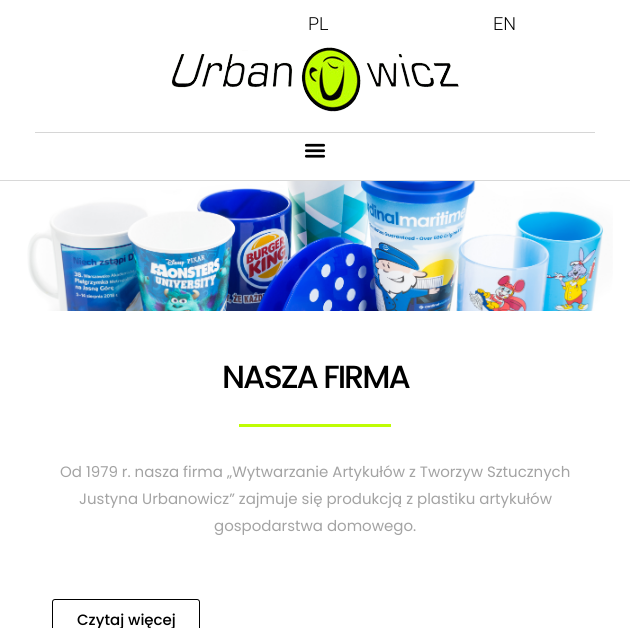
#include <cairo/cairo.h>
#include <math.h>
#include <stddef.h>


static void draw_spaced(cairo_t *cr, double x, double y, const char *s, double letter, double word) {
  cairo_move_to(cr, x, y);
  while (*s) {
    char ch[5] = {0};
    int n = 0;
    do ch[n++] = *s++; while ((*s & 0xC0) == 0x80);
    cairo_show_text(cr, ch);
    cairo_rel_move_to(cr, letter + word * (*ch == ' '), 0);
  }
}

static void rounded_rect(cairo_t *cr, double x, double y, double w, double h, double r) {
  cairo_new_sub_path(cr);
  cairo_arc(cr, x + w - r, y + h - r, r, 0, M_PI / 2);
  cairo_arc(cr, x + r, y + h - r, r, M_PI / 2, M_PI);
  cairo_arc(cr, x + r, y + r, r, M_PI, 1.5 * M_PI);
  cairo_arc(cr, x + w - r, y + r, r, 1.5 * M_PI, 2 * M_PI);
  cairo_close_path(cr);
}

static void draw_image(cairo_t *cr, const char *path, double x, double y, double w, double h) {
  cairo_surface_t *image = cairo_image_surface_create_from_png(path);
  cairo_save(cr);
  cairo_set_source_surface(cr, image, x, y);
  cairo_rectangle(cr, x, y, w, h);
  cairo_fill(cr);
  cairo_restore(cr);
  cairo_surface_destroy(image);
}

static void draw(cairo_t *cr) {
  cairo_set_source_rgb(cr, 1, 1, 1);
  cairo_paint(cr);
  draw_image(cr, "images/1.png", 171, 47, 288, 65);
  cairo_set_source_rgb(cr, 214 / 255.0, 214 / 255.0, 214 / 255.0);
  cairo_rectangle(cr, 35, 132, 560, 1);
  cairo_fill(cr);
  draw_image(cr, "images/2.png", 304, 143, 22, 15);
  draw_image(cr, "images/3.png", 27, 181, 586, 130);
  cairo_set_source_rgb(cr, 216 / 255.0, 216 / 255.0, 216 / 255.0);
  cairo_rectangle(cr, 0, 180, 630, 1);
  cairo_fill(cr);
  cairo_set_source_rgb(cr, 191 / 255.0, 253 / 255.0, 4 / 255.0);
  cairo_rectangle(cr, 239, 424, 152, 3);
  cairo_fill(cr);
  rounded_rect(cr, 52.5, 599.5, 147, 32, 2.5);
  cairo_set_source_rgb(cr, 0, 0, 0);
  cairo_set_line_width(cr, 1);
  cairo_stroke(cr);
  cairo_select_font_face(cr, "Roboto Light", CAIRO_FONT_SLANT_NORMAL, CAIRO_FONT_WEIGHT_NORMAL);
  cairo_set_font_size(cr, 18);
  cairo_move_to(cr, 308, 30);
  cairo_show_text(cr, "PL");
  cairo_move_to(cr, 493, 30);
  cairo_show_text(cr, "EN");
  cairo_select_font_face(cr, "Poppins Medium", CAIRO_FONT_SLANT_NORMAL, CAIRO_FONT_WEIGHT_NORMAL);
  cairo_set_font_size(cr, 32);
  draw_spaced(cr, 222, 388, "NASZA FIRMA", -2, 0);
  cairo_select_font_face(cr, "Poppins", CAIRO_FONT_SLANT_NORMAL, CAIRO_FONT_WEIGHT_NORMAL);
  cairo_set_font_size(cr, 15);
  cairo_set_source_rgb(cr, 163 / 255.0, 163 / 255.0, 163 / 255.0);
  cairo_move_to(cr, 60, 477);
  cairo_show_text(cr, "Od 1979 r. nasza firma „Wytwarzanie Artykułów z Tworzyw Sztucznych");
  cairo_move_to(cr, 79, 504);
  cairo_show_text(cr, "Justyna Urbanowicz” zajmuje się produkcją z plastiku artykułów");
  cairo_move_to(cr, 214, 531);
  cairo_show_text(cr, "gospodarstwa domowego.");
  cairo_select_font_face(cr, "Poppins Medium", CAIRO_FONT_SLANT_NORMAL, CAIRO_FONT_WEIGHT_NORMAL);
  cairo_set_source_rgb(cr, 0, 0, 0);
  cairo_move_to(cr, 77, 625);
  cairo_show_text(cr, "Czytaj więcej");
}

int main(void) {
  cairo_surface_t *surface = cairo_image_surface_create(CAIRO_FORMAT_RGB24, 630, 628);
  cairo_t *cr = cairo_create(surface);
  cairo_font_options_t *options = cairo_font_options_create();
  cairo_font_options_set_hint_metrics(options, CAIRO_HINT_METRICS_OFF);
  cairo_font_options_set_hint_style(options, CAIRO_HINT_STYLE_NONE);
  cairo_set_font_options(cr, options);
  cairo_set_miter_limit(cr, 4);
  draw(cr);
  cairo_surface_write_to_png(surface, "out.png");
  cairo_font_options_destroy(options);
  cairo_destroy(cr);
  cairo_surface_destroy(surface);
  return 0;
}
